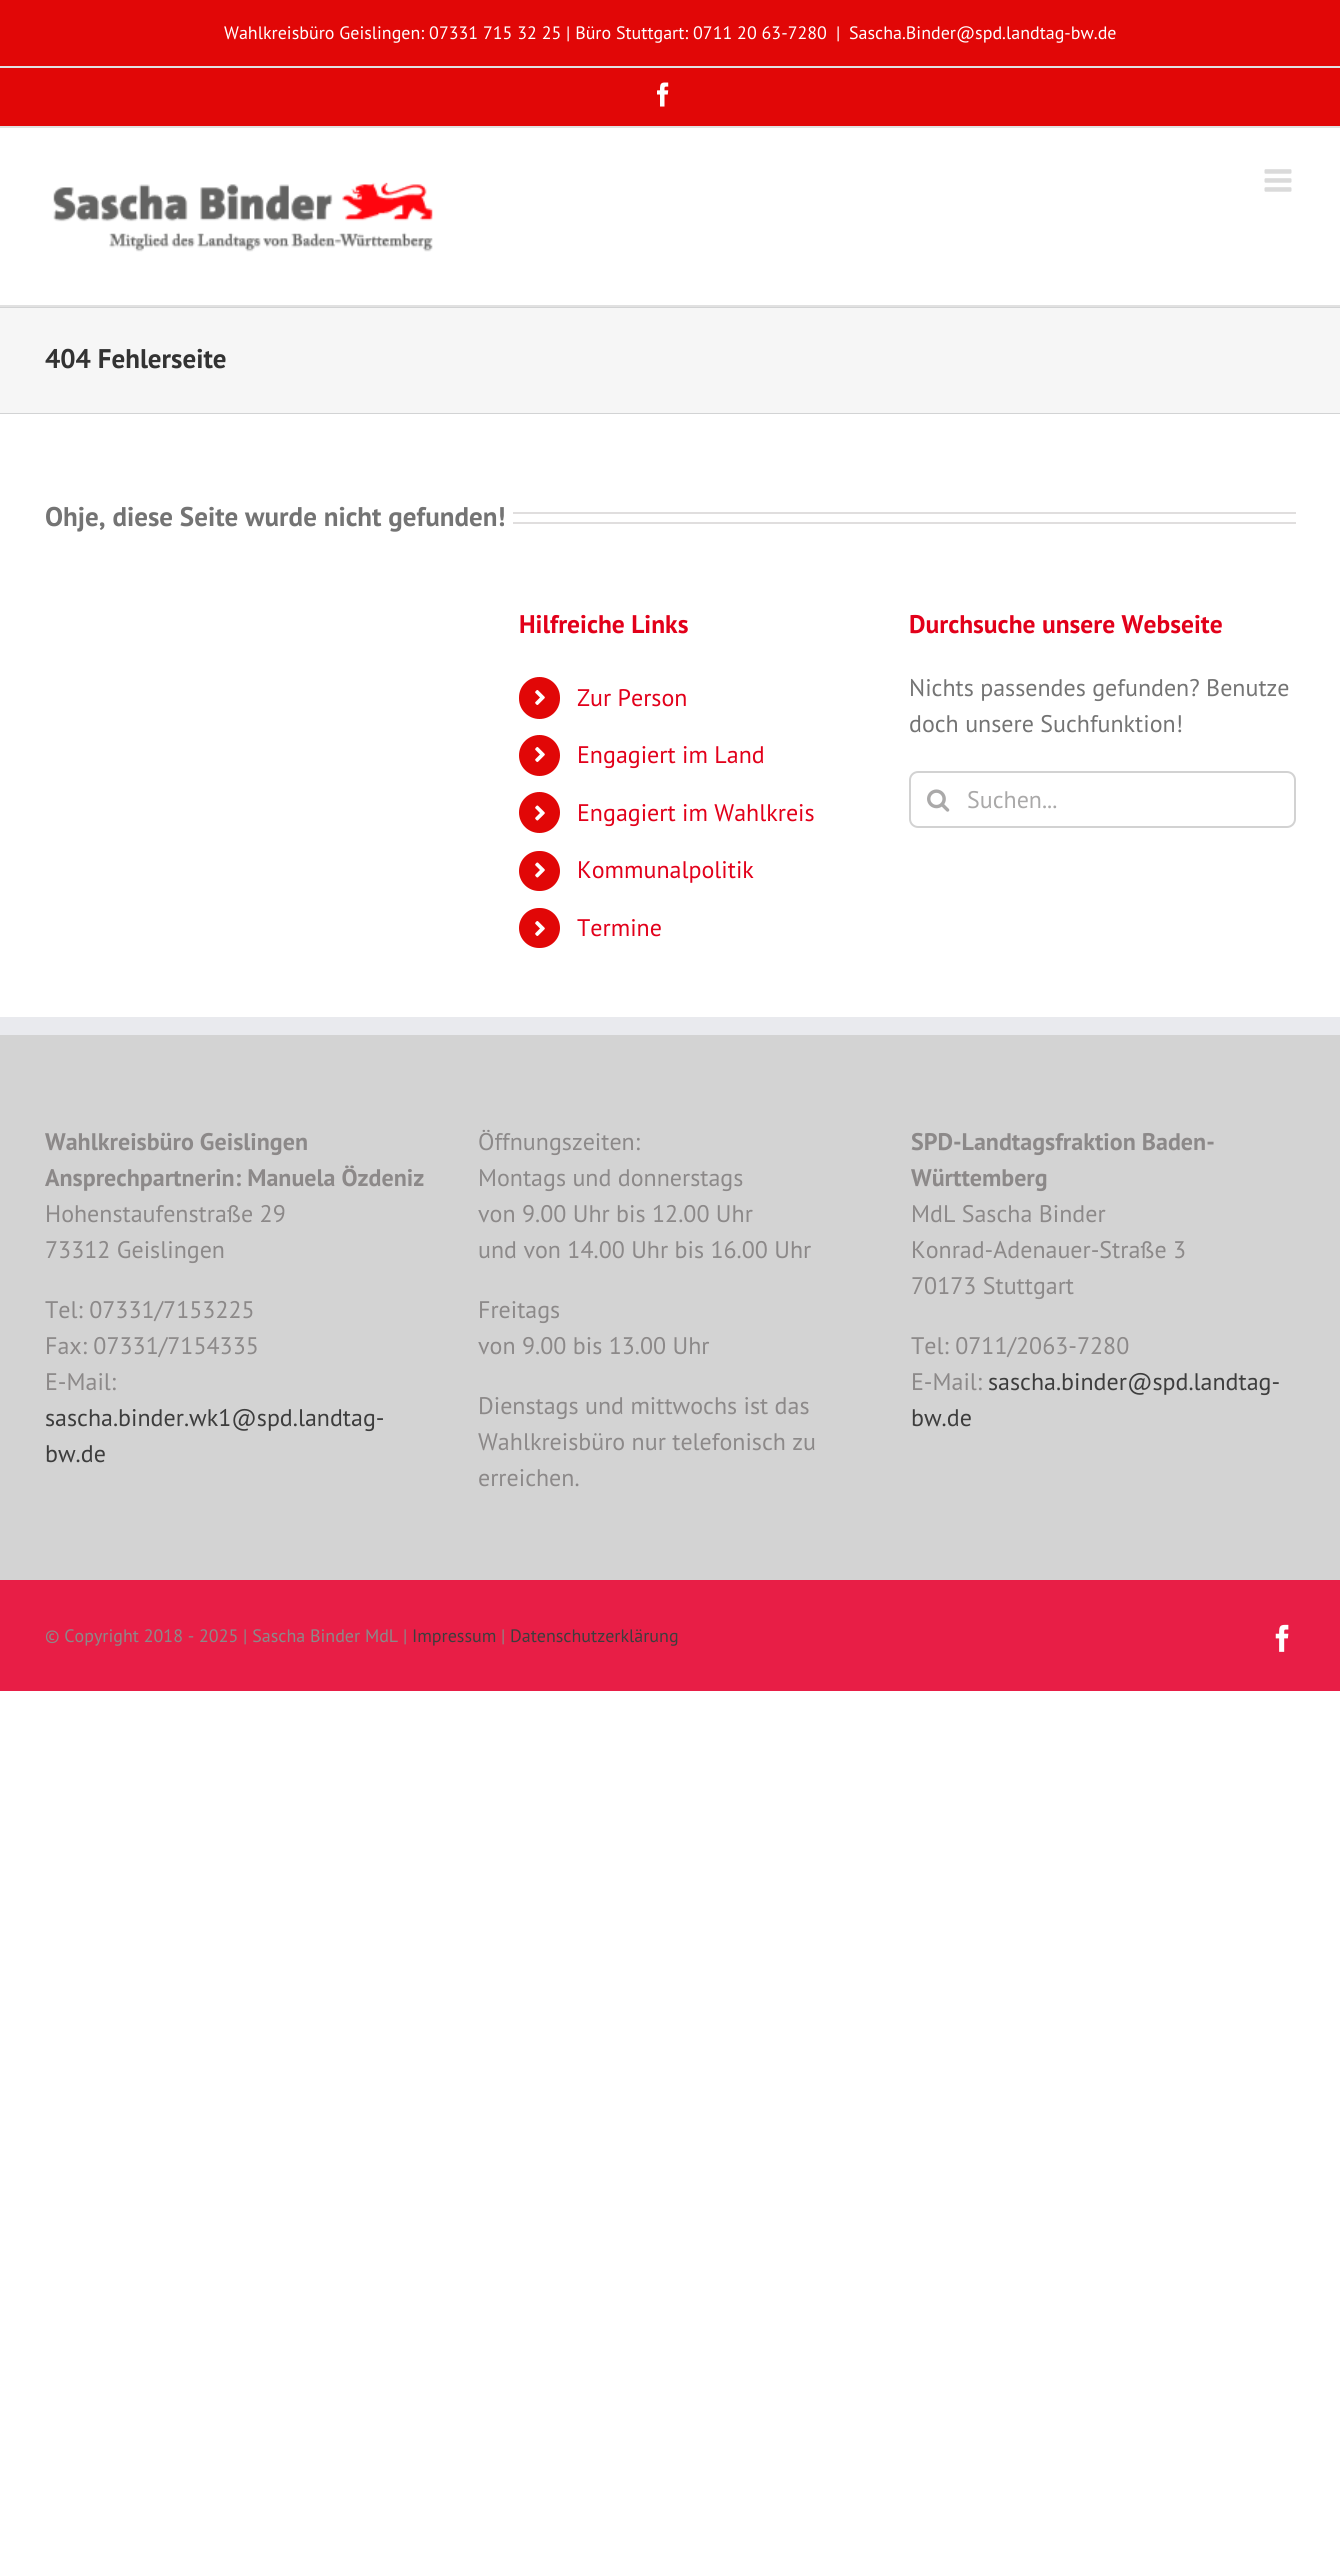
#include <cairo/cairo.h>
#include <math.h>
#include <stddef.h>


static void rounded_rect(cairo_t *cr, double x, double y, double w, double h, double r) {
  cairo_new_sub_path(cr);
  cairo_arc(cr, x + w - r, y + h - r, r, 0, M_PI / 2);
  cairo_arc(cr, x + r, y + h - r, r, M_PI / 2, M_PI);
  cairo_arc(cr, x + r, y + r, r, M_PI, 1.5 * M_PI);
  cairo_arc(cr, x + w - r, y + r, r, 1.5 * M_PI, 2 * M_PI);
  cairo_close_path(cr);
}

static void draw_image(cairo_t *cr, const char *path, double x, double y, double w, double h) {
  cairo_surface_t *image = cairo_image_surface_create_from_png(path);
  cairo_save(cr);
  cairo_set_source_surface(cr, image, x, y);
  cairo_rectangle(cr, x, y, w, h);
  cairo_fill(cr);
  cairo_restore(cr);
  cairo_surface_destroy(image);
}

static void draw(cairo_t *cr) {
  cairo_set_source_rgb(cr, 1, 1, 1);
  cairo_paint(cr);
  cairo_set_source_rgb(cr, 225 / 255.0, 7 / 255.0, 7 / 255.0);
  cairo_rectangle(cr, 0, 0, 1340, 126);
  cairo_fill(cr);
  cairo_set_source_rgb(cr, 225 / 255.0, 225 / 255.0, 225 / 255.0);
  cairo_rectangle(cr, 0, 126, 1340, 2);
  cairo_fill(cr);
  cairo_rectangle(cr, 0, 66, 1340, 2);
  cairo_fill(cr);
  draw_image(cr, "images/1.png", 657, 82, 12, 25);
  cairo_rectangle(cr, 0, 305, 1340, 2);
  cairo_fill(cr);
  draw_image(cr, "images/2.png", 53, 182, 380, 70);
  draw_image(cr, "images/3.png", 1264, 169, 28, 23);
  cairo_set_source_rgb(cr, 246 / 255.0, 246 / 255.0, 246 / 255.0);
  cairo_rectangle(cr, 0, 308, 1340, 105);
  cairo_fill(cr);
  cairo_set_source_rgb(cr, 210 / 255.0, 211 / 255.0, 212 / 255.0);
  cairo_rectangle(cr, 0, 307, 1340, 1);
  cairo_fill(cr);
  cairo_rectangle(cr, 0, 413, 1340, 1);
  cairo_fill(cr);
  cairo_set_source_rgb(cr, 224 / 255.0, 222 / 255.0, 222 / 255.0);
  cairo_rectangle(cr, 513, 512, 783, 2);
  cairo_fill(cr);
  cairo_rectangle(cr, 513, 522, 783, 2);
  cairo_fill(cr);
  cairo_set_source_rgb(cr, 225 / 255.0, 7 / 255.0, 7 / 255.0);
  rounded_rect(cr, 519, 677, 41, 42, 20.5);
  cairo_fill(cr);
  draw_image(cr, "images/4.png", 535, 690, 10, 15);
  cairo_arc(cr, 539.5, 755.5, 20.5, 0, 2 * M_PI);
  cairo_fill(cr);
  draw_image(cr, "images/4.png", 535, 747, 10, 15);
  cairo_arc(cr, 539.5, 812.5, 20.5, 0, 2 * M_PI);
  cairo_fill(cr);
  draw_image(cr, "images/5.png", 535, 805, 10, 16);
  rounded_rect(cr, 519, 851, 41, 40, 20);
  cairo_fill(cr);
  draw_image(cr, "images/5.png", 535, 862, 10, 16);
  rounded_rect(cr, 519, 908, 41, 40, 20);
  cairo_fill(cr);
  draw_image(cr, "images/4.png", 535, 921, 10, 15);
  rounded_rect(cr, 910, 772, 385, 55, 8);
  cairo_set_source_rgb(cr, 210 / 255.0, 210 / 255.0, 210 / 255.0);
  cairo_stroke(cr);
  draw_image(cr, "images/6.png", 927, 789, 23, 23);
  cairo_set_source_rgb(cr, 211 / 255.0, 211 / 255.0, 211 / 255.0);
  cairo_rectangle(cr, 0, 1035, 1340, 545);
  cairo_fill(cr);
  cairo_set_source_rgb(cr, 233 / 255.0, 234 / 255.0, 238 / 255.0);
  cairo_rectangle(cr, 0, 1017, 1340, 18);
  cairo_fill(cr);
  cairo_set_source_rgb(cr, 232 / 255.0, 30 / 255.0, 70 / 255.0);
  cairo_rectangle(cr, 0, 1580, 1340, 111);
  cairo_fill(cr);
  draw_image(cr, "images/7.png", 1275, 1624, 14, 28);
  cairo_select_font_face(cr, "PT Sans", CAIRO_FONT_SLANT_NORMAL, CAIRO_FONT_WEIGHT_NORMAL);
  cairo_set_font_size(cr, 18);
  cairo_set_source_rgb(cr, 1, 1, 1);
  cairo_move_to(cr, 224, 39);
  cairo_show_text(cr, "Wahlkreisbüro Geislingen: 07331 715 32 25 | Büro Stuttgart: 0711 20 63-7280");
  cairo_move_to(cr, 836, 39);
  cairo_show_text(cr, "|");
  cairo_move_to(cr, 849, 39);
  cairo_show_text(cr, "Sascha.Binder@spd.landtag-bw.de");
  cairo_select_font_face(cr, "PT Sans", CAIRO_FONT_SLANT_NORMAL, CAIRO_FONT_WEIGHT_BOLD);
  cairo_set_font_size(cr, 27);
  cairo_set_source_rgb(cr, 51 / 255.0, 51 / 255.0, 51 / 255.0);
  cairo_move_to(cr, 45, 368);
  cairo_show_text(cr, "404 Fehlerseite");
  cairo_set_source_rgb(cr, 116 / 255.0, 116 / 255.0, 116 / 255.0);
  cairo_move_to(cr, 45, 526);
  cairo_show_text(cr, "Ohje, diese Seite wurde nicht gefunden!");
  cairo_set_font_size(cr, 25.5);
  cairo_set_source_rgb(cr, 226 / 255.0, 0, 26 / 255.0);
  cairo_move_to(cr, 519, 633);
  cairo_show_text(cr, "Hilfreiche Links");
  cairo_select_font_face(cr, "PT Sans", CAIRO_FONT_SLANT_NORMAL, CAIRO_FONT_WEIGHT_NORMAL);
  cairo_set_font_size(cr, 24);
  cairo_move_to(cr, 577, 706);
  cairo_show_text(cr, "Zur Person");
  cairo_move_to(cr, 577, 763);
  cairo_show_text(cr, "Engagiert im Land");
  cairo_move_to(cr, 577, 821);
  cairo_show_text(cr, "Engagiert im Wahlkreis");
  cairo_move_to(cr, 577, 878);
  cairo_show_text(cr, "Kommunalpolitik");
  cairo_move_to(cr, 577, 936);
  cairo_show_text(cr, "Termine");
  cairo_select_font_face(cr, "PT Sans", CAIRO_FONT_SLANT_NORMAL, CAIRO_FONT_WEIGHT_BOLD);
  cairo_set_font_size(cr, 25.5);
  cairo_move_to(cr, 909, 633);
  cairo_show_text(cr, "Durchsuche unsere Webseite");
  cairo_select_font_face(cr, "PT Sans", CAIRO_FONT_SLANT_NORMAL, CAIRO_FONT_WEIGHT_NORMAL);
  cairo_set_font_size(cr, 24);
  cairo_set_source_rgb(cr, 116 / 255.0, 116 / 255.0, 116 / 255.0);
  cairo_move_to(cr, 909, 696);
  cairo_show_text(cr, "Nichts passendes gefunden? Benutze");
  cairo_move_to(cr, 909, 732);
  cairo_show_text(cr, "doch unsere Suchfunktion!");
  cairo_set_source_rgb(cr, 170 / 255.0, 169 / 255.0, 169 / 255.0);
  cairo_move_to(cr, 967, 808);
  cairo_show_text(cr, "Suchen...");
  cairo_select_font_face(cr, "PT Sans", CAIRO_FONT_SLANT_NORMAL, CAIRO_FONT_WEIGHT_BOLD);
  cairo_set_source_rgb(cr, 140 / 255.0, 137 / 255.0, 137 / 255.0);
  cairo_move_to(cr, 45, 1150);
  cairo_show_text(cr, "Wahlkreisbüro Geislingen");
  cairo_move_to(cr, 45, 1186);
  cairo_show_text(cr, "Ansprechpartnerin: Manuela Özdeniz");
  cairo_select_font_face(cr, "PT Sans", CAIRO_FONT_SLANT_NORMAL, CAIRO_FONT_WEIGHT_NORMAL);
  cairo_move_to(cr, 45, 1222);
  cairo_show_text(cr, "Hohenstaufenstraße 29");
  cairo_move_to(cr, 45, 1258);
  cairo_show_text(cr, "73312 Geislingen");
  cairo_move_to(cr, 45, 1318);
  cairo_show_text(cr, "Tel: 07331/7153225");
  cairo_move_to(cr, 45, 1354);
  cairo_show_text(cr, "Fax: 07331/7154335");
  cairo_move_to(cr, 45, 1390);
  cairo_show_text(cr, "E-Mail:");
  cairo_set_source_rgb(cr, 61 / 255.0, 61 / 255.0, 61 / 255.0);
  cairo_move_to(cr, 45, 1426);
  cairo_show_text(cr, "sascha.binder.wk1@spd.landtag-");
  cairo_move_to(cr, 45, 1462);
  cairo_show_text(cr, "bw.de");
  cairo_set_source_rgb(cr, 140 / 255.0, 137 / 255.0, 137 / 255.0);
  cairo_move_to(cr, 478, 1150);
  cairo_show_text(cr, "Öffnungszeiten:");
  cairo_move_to(cr, 478, 1186);
  cairo_show_text(cr, "Montags und donnerstags");
  cairo_move_to(cr, 478, 1222);
  cairo_show_text(cr, "von 9.00 Uhr bis 12.00 Uhr");
  cairo_move_to(cr, 478, 1258);
  cairo_show_text(cr, "und von 14.00 Uhr bis 16.00 Uhr");
  cairo_move_to(cr, 478, 1318);
  cairo_show_text(cr, "Freitags");
  cairo_move_to(cr, 478, 1354);
  cairo_show_text(cr, "von 9.00 bis 13.00 Uhr");
  cairo_move_to(cr, 478, 1414);
  cairo_show_text(cr, "Dienstags und mittwochs ist das");
  cairo_move_to(cr, 478, 1450);
  cairo_show_text(cr, "Wahlkreisbüro nur telefonisch zu");
  cairo_move_to(cr, 478, 1486);
  cairo_show_text(cr, "erreichen.");
  cairo_select_font_face(cr, "PT Sans", CAIRO_FONT_SLANT_NORMAL, CAIRO_FONT_WEIGHT_BOLD);
  cairo_move_to(cr, 911, 1150);
  cairo_show_text(cr, "SPD-Landtagsfraktion Baden-");
  cairo_move_to(cr, 911, 1186);
  cairo_show_text(cr, "Württemberg");
  cairo_select_font_face(cr, "PT Sans", CAIRO_FONT_SLANT_NORMAL, CAIRO_FONT_WEIGHT_NORMAL);
  cairo_move_to(cr, 911, 1222);
  cairo_show_text(cr, "MdL Sascha Binder");
  cairo_move_to(cr, 911, 1258);
  cairo_show_text(cr, "Konrad-Adenauer-Straße 3");
  cairo_move_to(cr, 911, 1294);
  cairo_show_text(cr, "70173 Stuttgart");
  cairo_move_to(cr, 911, 1354);
  cairo_show_text(cr, "Tel: 0711/2063-7280");
  cairo_move_to(cr, 911, 1390);
  cairo_show_text(cr, "E-Mail:");
  cairo_set_source_rgb(cr, 61 / 255.0, 61 / 255.0, 61 / 255.0);
  cairo_move_to(cr, 988, 1390);
  cairo_show_text(cr, "sascha.binder@spd.landtag-");
  cairo_move_to(cr, 911, 1426);
  cairo_show_text(cr, "bw.de");
  cairo_set_font_size(cr, 18);
  cairo_set_source_rgb(cr, 140 / 255.0, 137 / 255.0, 137 / 255.0);
  cairo_move_to(cr, 45, 1642);
  cairo_show_text(cr, "© Copyright 2018 - 2025 | Sascha Binder MdL |");
  cairo_set_source_rgb(cr, 61 / 255.0, 61 / 255.0, 61 / 255.0);
  cairo_move_to(cr, 412, 1642);
  cairo_show_text(cr, "Impressum");
  cairo_set_source_rgb(cr, 140 / 255.0, 137 / 255.0, 137 / 255.0);
  cairo_move_to(cr, 501, 1642);
  cairo_show_text(cr, "|");
  cairo_set_source_rgb(cr, 61 / 255.0, 61 / 255.0, 61 / 255.0);
  cairo_move_to(cr, 510, 1642);
  cairo_show_text(cr, "Datenschutzerklärung");
}

int main(void) {
  cairo_surface_t *surface = cairo_image_surface_create(CAIRO_FORMAT_RGB24, 1340, 2568);
  cairo_t *cr = cairo_create(surface);
  cairo_font_options_t *options = cairo_font_options_create();
  cairo_font_options_set_hint_metrics(options, CAIRO_HINT_METRICS_OFF);
  cairo_font_options_set_hint_style(options, CAIRO_HINT_STYLE_NONE);
  cairo_set_font_options(cr, options);
  cairo_set_miter_limit(cr, 4);
  draw(cr);
  cairo_surface_write_to_png(surface, "out.png");
  cairo_font_options_destroy(options);
  cairo_destroy(cr);
  cairo_surface_destroy(surface);
  return 0;
}
